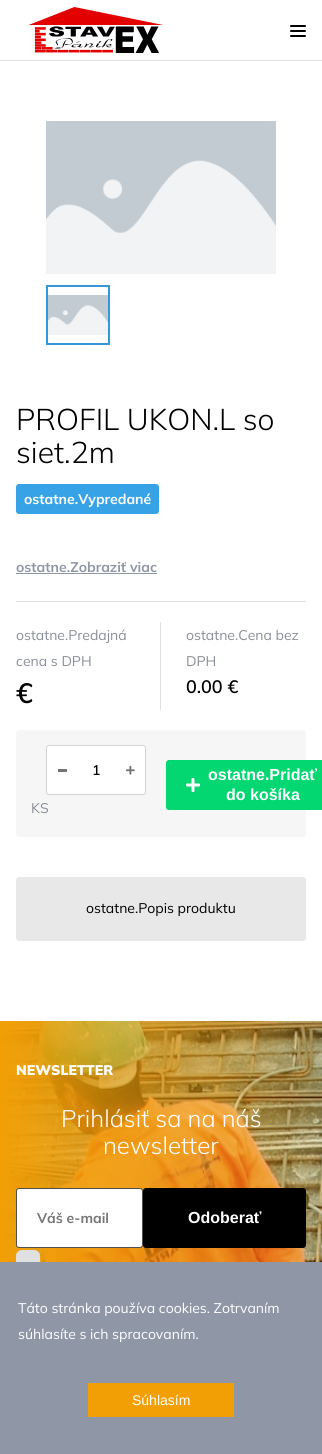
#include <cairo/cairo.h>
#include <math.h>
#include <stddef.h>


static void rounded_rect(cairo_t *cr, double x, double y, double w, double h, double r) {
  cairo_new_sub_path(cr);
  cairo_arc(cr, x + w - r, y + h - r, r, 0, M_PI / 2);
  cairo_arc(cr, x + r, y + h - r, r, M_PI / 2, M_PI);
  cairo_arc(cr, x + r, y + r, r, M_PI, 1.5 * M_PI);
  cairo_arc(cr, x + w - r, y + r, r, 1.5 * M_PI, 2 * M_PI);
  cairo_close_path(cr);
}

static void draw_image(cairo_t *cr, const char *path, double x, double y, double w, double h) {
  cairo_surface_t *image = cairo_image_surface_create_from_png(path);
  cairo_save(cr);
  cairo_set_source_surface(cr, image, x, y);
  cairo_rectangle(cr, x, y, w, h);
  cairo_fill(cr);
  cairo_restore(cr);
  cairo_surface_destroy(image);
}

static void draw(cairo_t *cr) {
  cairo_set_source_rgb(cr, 1, 1, 1);
  cairo_paint(cr);
  draw_image(cr, "images/1.png", 29, 7, 134, 46);
  cairo_set_source_rgb(cr, 0, 0, 0);
  rounded_rect(cr, 290, 25, 16, 2, 1);
  cairo_fill(cr);
  rounded_rect(cr, 290, 30, 16, 2, 1);
  cairo_fill(cr);
  rounded_rect(cr, 290, 35, 16, 2, 1);
  cairo_fill(cr);
  cairo_set_source_rgb(cr, 224 / 255.0, 224 / 255.0, 224 / 255.0);
  cairo_rectangle(cr, 0, 60, 322, 1);
  cairo_fill(cr);
  draw_image(cr, "images/2.png", 46, 121, 230, 153);
  cairo_rectangle(cr, 47, 286, 62, 58);
  cairo_set_source_rgb(cr, 52 / 255.0, 152 / 255.0, 219 / 255.0);
  cairo_stroke(cr);
  draw_image(cr, "images/3.png", 48, 295, 60, 40);
  cairo_set_source_rgb(cr, 55 / 255.0, 163 / 255.0, 230 / 255.0);
  rounded_rect(cr, 16, 484, 143, 30, 3);
  cairo_fill(cr);
  cairo_set_source_rgb(cr, 143 / 255.0, 150 / 255.0, 166 / 255.0);
  cairo_rectangle(cr, 16, 573, 141, 1);
  cairo_fill(cr);
  cairo_set_source_rgb(cr, 224 / 255.0, 224 / 255.0, 224 / 255.0);
  cairo_rectangle(cr, 16, 601, 290, 1);
  cairo_fill(cr);
  cairo_rectangle(cr, 160, 622, 1, 88);
  cairo_fill(cr);
  cairo_set_source_rgb(cr, 246 / 255.0, 246 / 255.0, 246 / 255.0);
  rounded_rect(cr, 16, 730, 290, 107, 3);
  cairo_fill(cr);
  cairo_set_source_rgb(cr, 1, 1, 1);
  rounded_rect(cr, 46.5, 745.5, 99, 49, 2.5);
  cairo_fill_preserve(cr);
  cairo_set_source_rgb(cr, 211 / 255.0, 211 / 255.0, 211 / 255.0);
  cairo_set_line_width(cr, 1);
  cairo_stroke(cr);
  cairo_set_source_rgb(cr, 116 / 255.0, 116 / 255.0, 116 / 255.0);
  cairo_rectangle(cr, 58, 769, 9, 3);
  cairo_fill(cr);
  draw_image(cr, "images/4.png", 126, 765, 9, 10);
  cairo_set_source_rgb(cr, 3 / 255.0, 215 / 255.0, 113 / 255.0);
  rounded_rect(cr, 166, 760, 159, 50, 3);
  cairo_fill(cr);
  draw_image(cr, "images/5.png", 186, 778, 14, 14);
  cairo_set_source_rgb(cr, 232 / 255.0, 232 / 255.0, 232 / 255.0);
  rounded_rect(cr, 16, 877, 290, 64, 3);
  cairo_fill(cr);
  draw_image(cr, "images/6.png", 0, 1021, 322, 241);
  cairo_set_source_rgb(cr, 1, 1, 1);
  rounded_rect(cr, 16.5, 1188.5, 126, 59, 2.5);
  cairo_fill_preserve(cr);
  cairo_set_source_rgb(cr, 80 / 255.0, 80 / 255.0, 80 / 255.0);
  cairo_stroke(cr);
  cairo_set_source_rgb(cr, 0, 0, 0);
  rounded_rect(cr, 143, 1188, 163, 60, 3);
  cairo_fill(cr);
  cairo_set_source_rgb(cr, 224 / 255.0, 224 / 255.0, 224 / 255.0);
  rounded_rect(cr, 16, 1250, 24, 24, 6);
  cairo_fill(cr);
  cairo_set_source_rgb(cr, 143 / 255.0, 150 / 255.0, 166 / 255.0);
  cairo_rectangle(cr, 0, 1262, 322, 192);
  cairo_fill(cr);
  cairo_set_source_rgb(cr, 242 / 255.0, 159 / 255.0, 5 / 255.0);
  cairo_rectangle(cr, 88, 1383, 146, 34);
  cairo_fill(cr);
  cairo_select_font_face(cr, "Mulish Light", CAIRO_FONT_SLANT_NORMAL, CAIRO_FONT_WEIGHT_NORMAL);
  cairo_set_font_size(cr, 30);
  cairo_set_source_rgb(cr, 0, 0, 0);
  cairo_move_to(cr, 16, 430);
  cairo_show_text(cr, "PROFIL UKON.L so");
  cairo_move_to(cr, 16, 463);
  cairo_show_text(cr, "siet.2m");
  cairo_select_font_face(cr, "Mulish", CAIRO_FONT_SLANT_NORMAL, CAIRO_FONT_WEIGHT_BOLD);
  cairo_set_font_size(cr, 14);
  cairo_set_source_rgb(cr, 1, 1, 1);
  cairo_move_to(cr, 24, 504);
  cairo_show_text(cr, "ostatne.Vypredané");
  cairo_set_source_rgb(cr, 143 / 255.0, 150 / 255.0, 166 / 255.0);
  cairo_move_to(cr, 16, 572);
  cairo_show_text(cr, "ostatne.Zobraziť viac");
  cairo_select_font_face(cr, "Mulish", CAIRO_FONT_SLANT_NORMAL, CAIRO_FONT_WEIGHT_NORMAL);
  cairo_set_source_rgb(cr, 137 / 255.0, 142 / 255.0, 152 / 255.0);
  cairo_move_to(cr, 16, 640);
  cairo_show_text(cr, "ostatne.Predajná");
  cairo_move_to(cr, 16, 666);
  cairo_show_text(cr, "cena s DPH");
  cairo_select_font_face(cr, "Mulish SemiBold", CAIRO_FONT_SLANT_NORMAL, CAIRO_FONT_WEIGHT_NORMAL);
  cairo_set_font_size(cr, 28);
  cairo_set_source_rgb(cr, 0, 0, 0);
  cairo_move_to(cr, 16, 703);
  cairo_show_text(cr, "€");
  cairo_select_font_face(cr, "Mulish", CAIRO_FONT_SLANT_NORMAL, CAIRO_FONT_WEIGHT_NORMAL);
  cairo_set_font_size(cr, 14);
  cairo_set_source_rgb(cr, 137 / 255.0, 142 / 255.0, 152 / 255.0);
  cairo_move_to(cr, 186, 640);
  cairo_show_text(cr, "ostatne.Cena bez");
  cairo_move_to(cr, 186, 666);
  cairo_show_text(cr, "DPH");
  cairo_select_font_face(cr, "Mulish SemiBold", CAIRO_FONT_SLANT_NORMAL, CAIRO_FONT_WEIGHT_NORMAL);
  cairo_set_font_size(cr, 18);
  cairo_set_source_rgb(cr, 0, 0, 0);
  cairo_move_to(cr, 186, 693);
  cairo_show_text(cr, "0.00 €");
  cairo_set_font_size(cr, 14);
  cairo_move_to(cr, 92, 775);
  cairo_show_text(cr, "1");
  cairo_select_font_face(cr, "Mulish", CAIRO_FONT_SLANT_NORMAL, CAIRO_FONT_WEIGHT_NORMAL);
  cairo_set_source_rgb(cr, 137 / 255.0, 142 / 255.0, 152 / 255.0);
  cairo_move_to(cr, 31, 813);
  cairo_show_text(cr, "KS");
  cairo_select_font_face(cr, "Liberation Sans", CAIRO_FONT_SLANT_NORMAL, CAIRO_FONT_WEIGHT_BOLD);
  cairo_set_font_size(cr, 16);
  cairo_set_source_rgb(cr, 1, 1, 1);
  cairo_move_to(cr, 208, 780);
  cairo_show_text(cr, "ostatne.Pridať");
  cairo_move_to(cr, 226, 800);
  cairo_show_text(cr, "do košíka");
  cairo_select_font_face(cr, "Mulish", CAIRO_FONT_SLANT_NORMAL, CAIRO_FONT_WEIGHT_NORMAL);
  cairo_set_font_size(cr, 14);
  cairo_set_source_rgb(cr, 0, 0, 0);
  cairo_move_to(cr, 86, 913);
  cairo_show_text(cr, "ostatne.Popis produktu");
  cairo_select_font_face(cr, "Mulish Black", CAIRO_FONT_SLANT_NORMAL, CAIRO_FONT_WEIGHT_NORMAL);
  cairo_set_source_rgb(cr, 1, 1, 1);
  cairo_move_to(cr, 16, 1075);
  cairo_show_text(cr, "NEWSLETTER");
  cairo_select_font_face(cr, "Mulish Light", CAIRO_FONT_SLANT_NORMAL, CAIRO_FONT_WEIGHT_NORMAL);
  cairo_set_font_size(cr, 24);
  cairo_move_to(cr, 61, 1127);
  cairo_show_text(cr, "Prihlásiť sa na náš");
  cairo_move_to(cr, 103, 1154);
  cairo_show_text(cr, "newsletter");
  cairo_select_font_face(cr, "Mulish", CAIRO_FONT_SLANT_NORMAL, CAIRO_FONT_WEIGHT_BOLD);
  cairo_set_font_size(cr, 14);
  cairo_set_source_rgb(cr, 117 / 255.0, 117 / 255.0, 117 / 255.0);
  cairo_move_to(cr, 37, 1223);
  cairo_show_text(cr, "Váš e-mail");
  cairo_select_font_face(cr, "Liberation Sans", CAIRO_FONT_SLANT_NORMAL, CAIRO_FONT_WEIGHT_BOLD);
  cairo_set_font_size(cr, 16);
  cairo_set_source_rgb(cr, 1, 1, 1);
  cairo_move_to(cr, 188, 1223);
  cairo_show_text(cr, "Odoberať");
  cairo_select_font_face(cr, "Mulish", CAIRO_FONT_SLANT_NORMAL, CAIRO_FONT_WEIGHT_NORMAL);
  cairo_set_font_size(cr, 14);
  cairo_move_to(cr, 18, 1313);
  cairo_show_text(cr, "Táto stránka používa cookies. Zotrvaním");
  cairo_move_to(cr, 18, 1339);
  cairo_show_text(cr, "súhlasíte s ich spracovaním.");
  cairo_select_font_face(cr, "Liberation Sans", CAIRO_FONT_SLANT_NORMAL, CAIRO_FONT_WEIGHT_NORMAL);
  cairo_move_to(cr, 132, 1405);
  cairo_show_text(cr, "Súhlasím");
}

int main(void) {
  cairo_surface_t *surface = cairo_image_surface_create(CAIRO_FORMAT_RGB24, 322, 1454);
  cairo_t *cr = cairo_create(surface);
  cairo_font_options_t *options = cairo_font_options_create();
  cairo_font_options_set_hint_metrics(options, CAIRO_HINT_METRICS_OFF);
  cairo_font_options_set_hint_style(options, CAIRO_HINT_STYLE_NONE);
  cairo_set_font_options(cr, options);
  cairo_set_miter_limit(cr, 4);
  draw(cr);
  cairo_surface_write_to_png(surface, "out.png");
  cairo_font_options_destroy(options);
  cairo_destroy(cr);
  cairo_surface_destroy(surface);
  return 0;
}
